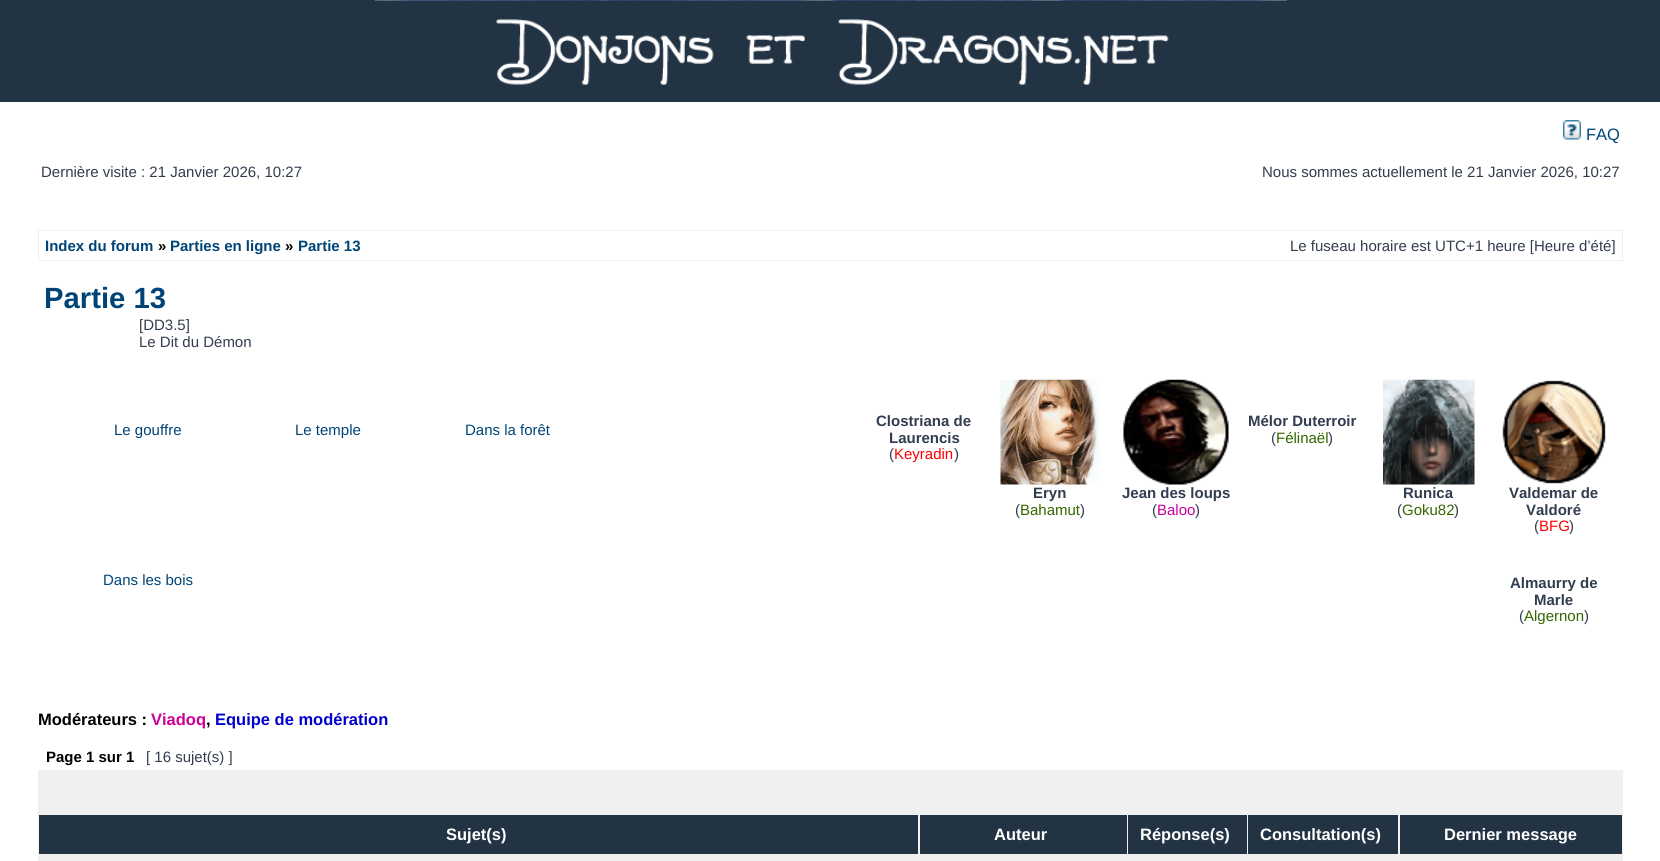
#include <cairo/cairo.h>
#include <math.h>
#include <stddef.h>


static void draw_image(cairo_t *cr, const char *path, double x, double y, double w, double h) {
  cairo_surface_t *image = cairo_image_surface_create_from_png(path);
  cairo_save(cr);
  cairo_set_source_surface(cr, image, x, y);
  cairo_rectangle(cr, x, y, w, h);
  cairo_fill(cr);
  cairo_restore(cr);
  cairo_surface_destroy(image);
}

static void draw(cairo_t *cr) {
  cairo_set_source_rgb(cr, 1, 1, 1);
  cairo_paint(cr);
  cairo_set_source_rgb(cr, 34 / 255.0, 51 / 255.0, 68 / 255.0);
  cairo_rectangle(cr, 0, 0, 1660, 102);
  cairo_fill(cr);
  draw_image(cr, "images/1.png", 375, 0, 912, 85);
  draw_image(cr, "images/2.png", 1563, 120, 18, 20);
  cairo_set_source_rgb(cr, 240 / 255.0, 240 / 255.0, 240 / 255.0);
  cairo_rectangle(cr, 38, 230, 1585, 31);
  cairo_fill(cr);
  cairo_set_source_rgb(cr, 1, 1, 1);
  cairo_rectangle(cr, 39, 231, 1583, 29);
  cairo_fill(cr);
  draw_image(cr, "images/3.png", 1000, 379, 100, 106);
  draw_image(cr, "images/4.png", 1123, 379, 106, 106);
  draw_image(cr, "images/5.png", 1383, 379, 92, 106);
  draw_image(cr, "images/6.png", 1502, 380, 104, 104);
  cairo_set_source_rgb(cr, 240 / 255.0, 240 / 255.0, 240 / 255.0);
  cairo_rectangle(cr, 38, 770, 1585, 91);
  cairo_fill(cr);
  cairo_set_source_rgb(cr, 34 / 255.0, 51 / 255.0, 68 / 255.0);
  cairo_rectangle(cr, 39, 815, 879, 39);
  cairo_fill(cr);
  cairo_rectangle(cr, 920, 815, 207, 39);
  cairo_fill(cr);
  cairo_rectangle(cr, 1128, 815, 119, 39);
  cairo_fill(cr);
  cairo_rectangle(cr, 1248, 815, 150, 39);
  cairo_fill(cr);
  cairo_rectangle(cr, 1400, 815, 222, 39);
  cairo_fill(cr);
  cairo_select_font_face(cr, "Liberation Sans", CAIRO_FONT_SLANT_NORMAL, CAIRO_FONT_WEIGHT_NORMAL);
  cairo_set_font_size(cr, 16.5);
  cairo_set_source_rgb(cr, 0, 68 / 255.0, 119 / 255.0);
  cairo_move_to(cr, 1586, 140);
  cairo_show_text(cr, "FAQ");
  cairo_set_font_size(cr, 15);
  cairo_set_source_rgb(cr, 50 / 255.0, 61 / 255.0, 79 / 255.0);
  cairo_move_to(cr, 41, 177);
  cairo_show_text(cr, "Dernière visite : 21 Janvier 2026, 10:27");
  cairo_move_to(cr, 1262, 177);
  cairo_show_text(cr, "Nous sommes actuellement le 21 Janvier 2026, 10:27");
  cairo_select_font_face(cr, "Liberation Sans", CAIRO_FONT_SLANT_NORMAL, CAIRO_FONT_WEIGHT_BOLD);
  cairo_set_source_rgb(cr, 0, 68 / 255.0, 119 / 255.0);
  cairo_move_to(cr, 45, 251);
  cairo_show_text(cr, "Index du forum");
  cairo_set_source_rgb(cr, 0, 0, 0);
  cairo_move_to(cr, 158, 251);
  cairo_show_text(cr, "»");
  cairo_set_source_rgb(cr, 0, 68 / 255.0, 119 / 255.0);
  cairo_move_to(cr, 170, 251);
  cairo_show_text(cr, "Parties en ligne");
  cairo_set_source_rgb(cr, 0, 0, 0);
  cairo_move_to(cr, 285, 251);
  cairo_show_text(cr, "»");
  cairo_set_source_rgb(cr, 0, 68 / 255.0, 119 / 255.0);
  cairo_move_to(cr, 298, 251);
  cairo_show_text(cr, "Partie 13");
  cairo_select_font_face(cr, "Liberation Sans", CAIRO_FONT_SLANT_NORMAL, CAIRO_FONT_WEIGHT_NORMAL);
  cairo_set_source_rgb(cr, 50 / 255.0, 61 / 255.0, 79 / 255.0);
  cairo_move_to(cr, 1290, 251);
  cairo_show_text(cr, "Le fuseau horaire est UTC+1 heure [Heure d’été]");
  cairo_select_font_face(cr, "Liberation Sans", CAIRO_FONT_SLANT_NORMAL, CAIRO_FONT_WEIGHT_BOLD);
  cairo_set_font_size(cr, 29.25);
  cairo_set_source_rgb(cr, 0, 68 / 255.0, 119 / 255.0);
  cairo_move_to(cr, 44, 308);
  cairo_show_text(cr, "Partie 13");
  cairo_select_font_face(cr, "Liberation Sans", CAIRO_FONT_SLANT_NORMAL, CAIRO_FONT_WEIGHT_NORMAL);
  cairo_set_font_size(cr, 15);
  cairo_set_source_rgb(cr, 50 / 255.0, 61 / 255.0, 79 / 255.0);
  cairo_move_to(cr, 139, 330);
  cairo_show_text(cr, "[DD3.5]");
  cairo_move_to(cr, 139, 347);
  cairo_show_text(cr, "Le Dit du Démon");
  cairo_set_source_rgb(cr, 0, 68 / 255.0, 119 / 255.0);
  cairo_move_to(cr, 114, 435);
  cairo_show_text(cr, "Le gouffre");
  cairo_move_to(cr, 295, 435);
  cairo_show_text(cr, "Le temple");
  cairo_move_to(cr, 465, 435);
  cairo_show_text(cr, "Dans la forêt");
  cairo_move_to(cr, 103, 585);
  cairo_show_text(cr, "Dans les bois");
  cairo_select_font_face(cr, "Liberation Sans", CAIRO_FONT_SLANT_NORMAL, CAIRO_FONT_WEIGHT_BOLD);
  cairo_set_source_rgb(cr, 50 / 255.0, 61 / 255.0, 79 / 255.0);
  cairo_move_to(cr, 876, 426);
  cairo_show_text(cr, "Clostriana de");
  cairo_move_to(cr, 889, 443);
  cairo_show_text(cr, "Laurencis");
  cairo_select_font_face(cr, "Liberation Sans", CAIRO_FONT_SLANT_NORMAL, CAIRO_FONT_WEIGHT_NORMAL);
  cairo_move_to(cr, 889, 459);
  cairo_show_text(cr, "(");
  cairo_set_source_rgb(cr, 1, 0, 0);
  cairo_move_to(cr, 894, 459);
  cairo_show_text(cr, "Keyradin");
  cairo_set_source_rgb(cr, 50 / 255.0, 61 / 255.0, 79 / 255.0);
  cairo_move_to(cr, 954, 459);
  cairo_show_text(cr, ")");
  cairo_select_font_face(cr, "Liberation Sans", CAIRO_FONT_SLANT_NORMAL, CAIRO_FONT_WEIGHT_BOLD);
  cairo_move_to(cr, 1248, 426);
  cairo_show_text(cr, "Mélor Duterroir");
  cairo_select_font_face(cr, "Liberation Sans", CAIRO_FONT_SLANT_NORMAL, CAIRO_FONT_WEIGHT_NORMAL);
  cairo_move_to(cr, 1271, 443);
  cairo_show_text(cr, "(");
  cairo_set_source_rgb(cr, 51 / 255.0, 102 / 255.0, 0);
  cairo_move_to(cr, 1276, 443);
  cairo_show_text(cr, "Félinaël");
  cairo_set_source_rgb(cr, 50 / 255.0, 61 / 255.0, 79 / 255.0);
  cairo_move_to(cr, 1328, 443);
  cairo_show_text(cr, ")");
  cairo_select_font_face(cr, "Liberation Sans", CAIRO_FONT_SLANT_NORMAL, CAIRO_FONT_WEIGHT_BOLD);
  cairo_move_to(cr, 1033, 498);
  cairo_show_text(cr, "Eryn");
  cairo_select_font_face(cr, "Liberation Sans", CAIRO_FONT_SLANT_NORMAL, CAIRO_FONT_WEIGHT_NORMAL);
  cairo_move_to(cr, 1015, 515);
  cairo_show_text(cr, "(");
  cairo_set_source_rgb(cr, 51 / 255.0, 102 / 255.0, 0);
  cairo_move_to(cr, 1020, 515);
  cairo_show_text(cr, "Bahamut");
  cairo_set_source_rgb(cr, 50 / 255.0, 61 / 255.0, 79 / 255.0);
  cairo_move_to(cr, 1080, 515);
  cairo_show_text(cr, ")");
  cairo_select_font_face(cr, "Liberation Sans", CAIRO_FONT_SLANT_NORMAL, CAIRO_FONT_WEIGHT_BOLD);
  cairo_move_to(cr, 1122, 498);
  cairo_show_text(cr, "Jean des loups");
  cairo_select_font_face(cr, "Liberation Sans", CAIRO_FONT_SLANT_NORMAL, CAIRO_FONT_WEIGHT_NORMAL);
  cairo_move_to(cr, 1152, 515);
  cairo_show_text(cr, "(");
  cairo_set_source_rgb(cr, 204 / 255.0, 0, 153 / 255.0);
  cairo_move_to(cr, 1157, 515);
  cairo_show_text(cr, "Baloo");
  cairo_set_source_rgb(cr, 50 / 255.0, 61 / 255.0, 79 / 255.0);
  cairo_move_to(cr, 1195, 515);
  cairo_show_text(cr, ")");
  cairo_select_font_face(cr, "Liberation Sans", CAIRO_FONT_SLANT_NORMAL, CAIRO_FONT_WEIGHT_BOLD);
  cairo_move_to(cr, 1403, 498);
  cairo_show_text(cr, "Runica");
  cairo_select_font_face(cr, "Liberation Sans", CAIRO_FONT_SLANT_NORMAL, CAIRO_FONT_WEIGHT_NORMAL);
  cairo_move_to(cr, 1397, 515);
  cairo_show_text(cr, "(");
  cairo_set_source_rgb(cr, 51 / 255.0, 102 / 255.0, 0);
  cairo_move_to(cr, 1402, 515);
  cairo_show_text(cr, "Goku82");
  cairo_set_source_rgb(cr, 50 / 255.0, 61 / 255.0, 79 / 255.0);
  cairo_move_to(cr, 1454, 515);
  cairo_show_text(cr, ")");
  cairo_select_font_face(cr, "Liberation Sans", CAIRO_FONT_SLANT_NORMAL, CAIRO_FONT_WEIGHT_BOLD);
  cairo_move_to(cr, 1509, 498);
  cairo_show_text(cr, "Valdemar de");
  cairo_move_to(cr, 1526, 515);
  cairo_show_text(cr, "Valdoré");
  cairo_select_font_face(cr, "Liberation Sans", CAIRO_FONT_SLANT_NORMAL, CAIRO_FONT_WEIGHT_NORMAL);
  cairo_move_to(cr, 1534, 531);
  cairo_show_text(cr, "(");
  cairo_set_source_rgb(cr, 1, 0, 0);
  cairo_move_to(cr, 1539, 531);
  cairo_show_text(cr, "BFG");
  cairo_set_source_rgb(cr, 50 / 255.0, 61 / 255.0, 79 / 255.0);
  cairo_move_to(cr, 1569, 531);
  cairo_show_text(cr, ")");
  cairo_select_font_face(cr, "Liberation Sans", CAIRO_FONT_SLANT_NORMAL, CAIRO_FONT_WEIGHT_BOLD);
  cairo_move_to(cr, 1510, 588);
  cairo_show_text(cr, "Almaurry de");
  cairo_move_to(cr, 1534, 605);
  cairo_show_text(cr, "Marle");
  cairo_select_font_face(cr, "Liberation Sans", CAIRO_FONT_SLANT_NORMAL, CAIRO_FONT_WEIGHT_NORMAL);
  cairo_move_to(cr, 1519, 621);
  cairo_show_text(cr, "(");
  cairo_set_source_rgb(cr, 51 / 255.0, 102 / 255.0, 0);
  cairo_move_to(cr, 1524, 621);
  cairo_show_text(cr, "Algernon");
  cairo_set_source_rgb(cr, 50 / 255.0, 61 / 255.0, 79 / 255.0);
  cairo_move_to(cr, 1584, 621);
  cairo_show_text(cr, ")");
  cairo_select_font_face(cr, "Liberation Sans", CAIRO_FONT_SLANT_NORMAL, CAIRO_FONT_WEIGHT_BOLD);
  cairo_set_font_size(cr, 16.5);
  cairo_set_source_rgb(cr, 0, 0, 0);
  cairo_move_to(cr, 38, 725);
  cairo_show_text(cr, "Modérateurs :");
  cairo_set_source_rgb(cr, 204 / 255.0, 0, 153 / 255.0);
  cairo_move_to(cr, 151, 725);
  cairo_show_text(cr, "Viadoq");
  cairo_set_source_rgb(cr, 0, 0, 0);
  cairo_move_to(cr, 206, 725);
  cairo_show_text(cr, ",");
  cairo_set_source_rgb(cr, 0, 0, 204 / 255.0);
  cairo_move_to(cr, 215, 725);
  cairo_show_text(cr, "Equipe de modération");
  cairo_set_font_size(cr, 15);
  cairo_set_source_rgb(cr, 0, 0, 0);
  cairo_move_to(cr, 46, 762);
  cairo_show_text(cr, "Page 1 sur 1");
  cairo_select_font_face(cr, "Liberation Sans", CAIRO_FONT_SLANT_NORMAL, CAIRO_FONT_WEIGHT_NORMAL);
  cairo_set_source_rgb(cr, 50 / 255.0, 61 / 255.0, 79 / 255.0);
  cairo_move_to(cr, 146, 762);
  cairo_show_text(cr, "[ 16 sujet(s) ]");
  cairo_select_font_face(cr, "Liberation Sans", CAIRO_FONT_SLANT_NORMAL, CAIRO_FONT_WEIGHT_BOLD);
  cairo_set_font_size(cr, 16.5);
  cairo_set_source_rgb(cr, 1, 1, 1);
  cairo_move_to(cr, 446, 840);
  cairo_show_text(cr, "Sujet(s)");
  cairo_move_to(cr, 994, 840);
  cairo_show_text(cr, "Auteur");
  cairo_move_to(cr, 1140, 840);
  cairo_show_text(cr, "Réponse(s)");
  cairo_move_to(cr, 1260, 840);
  cairo_show_text(cr, "Consultation(s)");
  cairo_move_to(cr, 1444, 840);
  cairo_show_text(cr, "Dernier message");
}

int main(void) {
  cairo_surface_t *surface = cairo_image_surface_create(CAIRO_FORMAT_RGB24, 1660, 861);
  cairo_t *cr = cairo_create(surface);
  cairo_font_options_t *options = cairo_font_options_create();
  cairo_font_options_set_hint_metrics(options, CAIRO_HINT_METRICS_OFF);
  cairo_font_options_set_hint_style(options, CAIRO_HINT_STYLE_NONE);
  cairo_set_font_options(cr, options);
  cairo_set_miter_limit(cr, 4);
  draw(cr);
  cairo_surface_write_to_png(surface, "out.png");
  cairo_font_options_destroy(options);
  cairo_destroy(cr);
  cairo_surface_destroy(surface);
  return 0;
}
